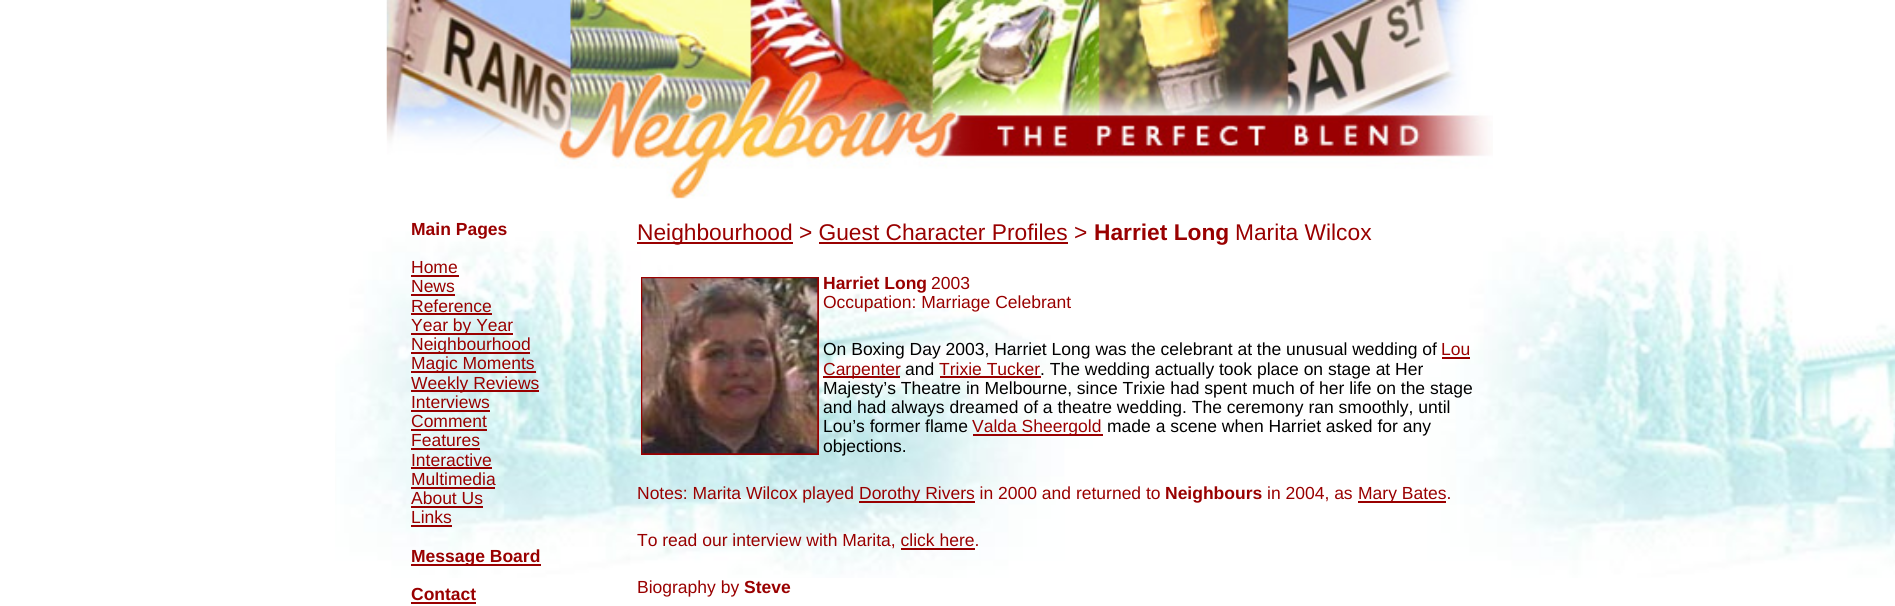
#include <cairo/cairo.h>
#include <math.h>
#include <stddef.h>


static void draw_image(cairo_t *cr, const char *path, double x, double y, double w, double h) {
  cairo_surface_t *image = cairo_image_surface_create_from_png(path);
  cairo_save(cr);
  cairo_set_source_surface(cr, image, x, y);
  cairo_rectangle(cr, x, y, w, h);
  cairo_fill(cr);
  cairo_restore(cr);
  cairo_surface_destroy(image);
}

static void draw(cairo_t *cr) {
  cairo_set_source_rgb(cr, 1, 1, 1);
  cairo_paint(cr);
  draw_image(cr, "images/1.png", 335, 231, 1560, 347);
  draw_image(cr, "images/2.png", 386, 0, 1107, 199);
  cairo_set_source_rgb(cr, 153 / 255.0, 0, 0);
  cairo_rectangle(cr, 411, 275, 48, 2);
  cairo_fill(cr);
  cairo_rectangle(cr, 411, 294, 44, 2);
  cairo_fill(cr);
  cairo_rectangle(cr, 411, 313, 81, 2);
  cairo_fill(cr);
  cairo_rectangle(cr, 411, 333, 102, 2);
  cairo_fill(cr);
  cairo_rectangle(cr, 411, 352, 119, 2);
  cairo_fill(cr);
  cairo_rectangle(cr, 411, 371, 125, 2);
  cairo_fill(cr);
  cairo_rectangle(cr, 411, 390, 128, 2);
  cairo_fill(cr);
  cairo_rectangle(cr, 411, 410, 79, 2);
  cairo_fill(cr);
  cairo_rectangle(cr, 411, 429, 76, 2);
  cairo_fill(cr);
  cairo_rectangle(cr, 411, 448, 69, 2);
  cairo_fill(cr);
  cairo_rectangle(cr, 411, 467, 81, 2);
  cairo_fill(cr);
  cairo_rectangle(cr, 411, 487, 84, 2);
  cairo_fill(cr);
  cairo_rectangle(cr, 411, 506, 72, 2);
  cairo_fill(cr);
  cairo_rectangle(cr, 411, 525, 41, 2);
  cairo_fill(cr);
  cairo_rectangle(cr, 411, 564, 130, 2);
  cairo_fill(cr);
  cairo_rectangle(cr, 411, 602, 65, 2);
  cairo_fill(cr);
  cairo_rectangle(cr, 637, 242, 156, 2);
  cairo_fill(cr);
  cairo_rectangle(cr, 819, 242, 249, 2);
  cairo_fill(cr);
  cairo_rectangle(cr, 642, 278, 176, 176);
  cairo_stroke(cr);
  draw_image(cr, "images/3.png", 642, 278, 176, 176);
  cairo_rectangle(cr, 1442, 357, 28, 2);
  cairo_fill(cr);
  cairo_rectangle(cr, 823, 376, 77, 2);
  cairo_fill(cr);
  cairo_rectangle(cr, 940, 376, 101, 2);
  cairo_fill(cr);
  cairo_rectangle(cr, 973, 434, 130, 2);
  cairo_fill(cr);
  cairo_rectangle(cr, 859, 501, 116, 2);
  cairo_fill(cr);
  cairo_rectangle(cr, 1358, 501, 88, 2);
  cairo_fill(cr);
  cairo_rectangle(cr, 901, 548, 74, 2);
  cairo_fill(cr);
  cairo_select_font_face(cr, "Liberation Sans", CAIRO_FONT_SLANT_NORMAL, CAIRO_FONT_WEIGHT_BOLD);
  cairo_set_font_size(cr, 17.5);
  cairo_move_to(cr, 411, 235);
  cairo_show_text(cr, "Main Pages");
  cairo_select_font_face(cr, "Liberation Sans", CAIRO_FONT_SLANT_NORMAL, CAIRO_FONT_WEIGHT_NORMAL);
  cairo_move_to(cr, 411, 273);
  cairo_show_text(cr, "Home");
  cairo_move_to(cr, 411, 292);
  cairo_show_text(cr, "News");
  cairo_move_to(cr, 411, 312);
  cairo_show_text(cr, "Reference");
  cairo_move_to(cr, 411, 331);
  cairo_show_text(cr, "Year by Year");
  cairo_move_to(cr, 411, 350);
  cairo_show_text(cr, "Neighbourhood");
  cairo_move_to(cr, 411, 369);
  cairo_show_text(cr, "Magic Moments");
  cairo_move_to(cr, 411, 389);
  cairo_show_text(cr, "Weekly Reviews");
  cairo_move_to(cr, 411, 408);
  cairo_show_text(cr, "Interviews");
  cairo_move_to(cr, 411, 427);
  cairo_show_text(cr, "Comment");
  cairo_move_to(cr, 411, 446);
  cairo_show_text(cr, "Features");
  cairo_move_to(cr, 411, 466);
  cairo_show_text(cr, "Interactive");
  cairo_move_to(cr, 411, 485);
  cairo_show_text(cr, "Multimedia");
  cairo_move_to(cr, 411, 504);
  cairo_show_text(cr, "About Us");
  cairo_move_to(cr, 411, 523);
  cairo_show_text(cr, "Links");
  cairo_select_font_face(cr, "Liberation Sans", CAIRO_FONT_SLANT_NORMAL, CAIRO_FONT_WEIGHT_BOLD);
  cairo_move_to(cr, 411, 562);
  cairo_show_text(cr, "Message Board");
  cairo_move_to(cr, 411, 600);
  cairo_show_text(cr, "Contact");
  cairo_select_font_face(cr, "Liberation Sans", CAIRO_FONT_SLANT_NORMAL, CAIRO_FONT_WEIGHT_NORMAL);
  cairo_set_font_size(cr, 22.75);
  cairo_move_to(cr, 637, 240);
  cairo_show_text(cr, "Neighbourhood > Guest Character Profiles >");
  cairo_select_font_face(cr, "Liberation Sans", CAIRO_FONT_SLANT_NORMAL, CAIRO_FONT_WEIGHT_BOLD);
  cairo_move_to(cr, 1094, 240);
  cairo_show_text(cr, "Harriet Long");
  cairo_select_font_face(cr, "Liberation Sans", CAIRO_FONT_SLANT_NORMAL, CAIRO_FONT_WEIGHT_NORMAL);
  cairo_move_to(cr, 1235, 240);
  cairo_show_text(cr, "Marita Wilcox");
  cairo_select_font_face(cr, "Liberation Sans", CAIRO_FONT_SLANT_NORMAL, CAIRO_FONT_WEIGHT_BOLD);
  cairo_set_font_size(cr, 17.5);
  cairo_move_to(cr, 823, 289);
  cairo_show_text(cr, "Harriet Long");
  cairo_select_font_face(cr, "Liberation Sans", CAIRO_FONT_SLANT_NORMAL, CAIRO_FONT_WEIGHT_NORMAL);
  cairo_move_to(cr, 931, 289);
  cairo_show_text(cr, "2003");
  cairo_move_to(cr, 823, 308);
  cairo_show_text(cr, "Occupation: Marriage Celebrant");
  cairo_set_source_rgb(cr, 0, 0, 0);
  cairo_move_to(cr, 823, 355);
  cairo_show_text(cr, "On Boxing Day 2003, Harriet Long was the celebrant at the unusual wedding of");
  cairo_set_source_rgb(cr, 153 / 255.0, 0, 0);
  cairo_move_to(cr, 1441, 355);
  cairo_show_text(cr, "Lou");
  cairo_move_to(cr, 823, 375);
  cairo_show_text(cr, "Carpenter");
  cairo_set_source_rgb(cr, 0, 0, 0);
  cairo_move_to(cr, 905, 375);
  cairo_show_text(cr, "and");
  cairo_set_source_rgb(cr, 153 / 255.0, 0, 0);
  cairo_move_to(cr, 939, 375);
  cairo_show_text(cr, "Trixie Tucker");
  cairo_set_source_rgb(cr, 0, 0, 0);
  cairo_move_to(cr, 1040, 375);
  cairo_show_text(cr, ". The wedding actually took place on stage at Her");
  cairo_move_to(cr, 823, 394);
  cairo_show_text(cr, "Majesty’s Theatre in Melbourne, since Trixie had spent much of her life on the stage");
  cairo_move_to(cr, 823, 413);
  cairo_show_text(cr, "and had always dreamed of a theatre wedding. The ceremony ran smoothly, until");
  cairo_move_to(cr, 823, 432);
  cairo_show_text(cr, "Lou’s former flame");
  cairo_set_source_rgb(cr, 153 / 255.0, 0, 0);
  cairo_move_to(cr, 972, 432);
  cairo_show_text(cr, "Valda Sheergold");
  cairo_set_source_rgb(cr, 0, 0, 0);
  cairo_move_to(cr, 1107, 432);
  cairo_show_text(cr, "made a scene when Harriet asked for any");
  cairo_move_to(cr, 823, 452);
  cairo_show_text(cr, "objections.");
  cairo_set_source_rgb(cr, 153 / 255.0, 0, 0);
  cairo_move_to(cr, 637, 499);
  cairo_show_text(cr, "Notes: Marita Wilcox played");
  cairo_move_to(cr, 859, 499);
  cairo_show_text(cr, "Dorothy Rivers in 2000 and returned to");
  cairo_select_font_face(cr, "Liberation Sans", CAIRO_FONT_SLANT_NORMAL, CAIRO_FONT_WEIGHT_BOLD);
  cairo_move_to(cr, 1165, 499);
  cairo_show_text(cr, "Neighbours");
  cairo_select_font_face(cr, "Liberation Sans", CAIRO_FONT_SLANT_NORMAL, CAIRO_FONT_WEIGHT_NORMAL);
  cairo_move_to(cr, 1267, 499);
  cairo_show_text(cr, "in 2004, as");
  cairo_move_to(cr, 1358, 499);
  cairo_show_text(cr, "Mary Bates.");
  cairo_move_to(cr, 637, 546);
  cairo_show_text(cr, "To read our interview with Marita, click here.");
  cairo_move_to(cr, 637, 593);
  cairo_show_text(cr, "Biography by");
  cairo_select_font_face(cr, "Liberation Sans", CAIRO_FONT_SLANT_NORMAL, CAIRO_FONT_WEIGHT_BOLD);
  cairo_move_to(cr, 744, 593);
  cairo_show_text(cr, "Steve");
}

int main(void) {
  cairo_surface_t *surface = cairo_image_surface_create(CAIRO_FORMAT_RGB24, 1895, 606);
  cairo_t *cr = cairo_create(surface);
  cairo_font_options_t *options = cairo_font_options_create();
  cairo_font_options_set_hint_metrics(options, CAIRO_HINT_METRICS_OFF);
  cairo_font_options_set_hint_style(options, CAIRO_HINT_STYLE_NONE);
  cairo_set_font_options(cr, options);
  cairo_set_miter_limit(cr, 4);
  draw(cr);
  cairo_surface_write_to_png(surface, "out.png");
  cairo_font_options_destroy(options);
  cairo_destroy(cr);
  cairo_surface_destroy(surface);
  return 0;
}
